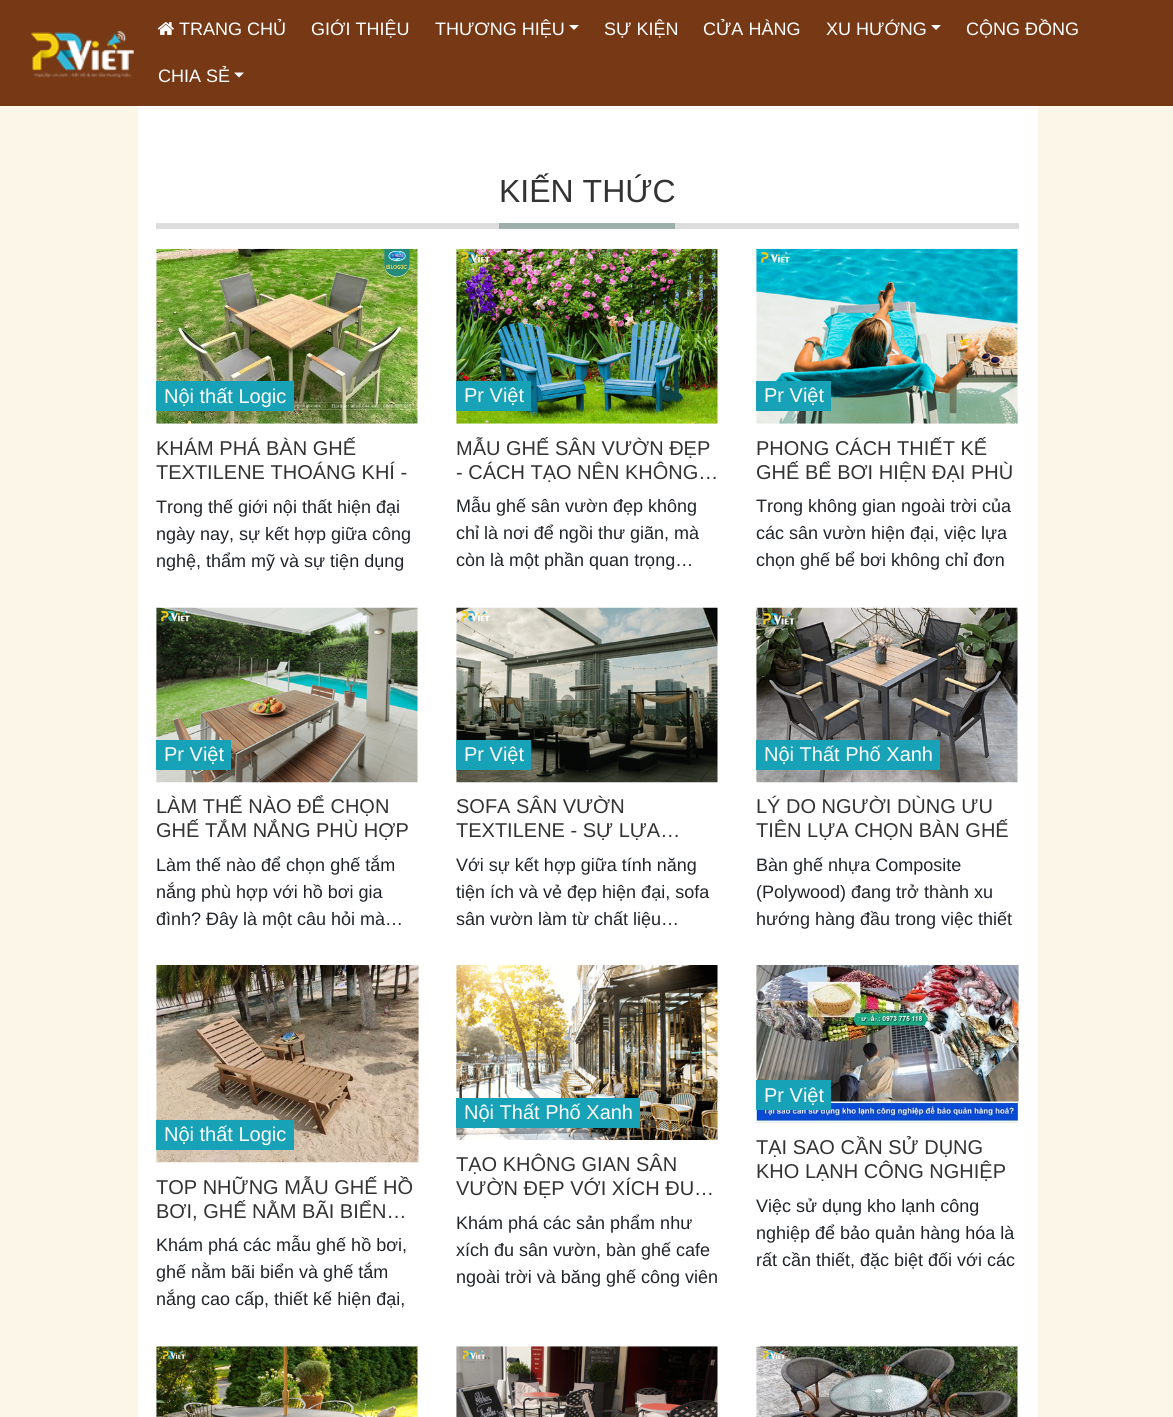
#include <cairo/cairo.h>
#include <math.h>
#include <stddef.h>


static void draw_image(cairo_t *cr, const char *path, double x, double y, double w, double h) {
  cairo_surface_t *image = cairo_image_surface_create_from_png(path);
  cairo_save(cr);
  cairo_set_source_surface(cr, image, x, y);
  cairo_rectangle(cr, x, y, w, h);
  cairo_fill(cr);
  cairo_restore(cr);
  cairo_surface_destroy(image);
}

static void draw(cairo_t *cr) {
  cairo_set_source_rgb(cr, 251 / 255.0, 246 / 255.0, 232 / 255.0);
  cairo_paint(cr);
  cairo_set_source_rgb(cr, 119 / 255.0, 57 / 255.0, 21 / 255.0);
  cairo_rectangle(cr, 0, 0, 1173, 106);
  cairo_fill(cr);
  draw_image(cr, "images/1.png", 31, 31, 103, 47);
  draw_image(cr, "images/2.png", 157, 22, 17, 13);
  cairo_set_source_rgb(cr, 1, 1, 1);
  cairo_new_path(cr);
  cairo_move_to(cr, 569, 25);
  cairo_line_to(cr, 579, 25);
  cairo_line_to(cr, 574, 30);
  cairo_close_path(cr);
  cairo_fill(cr);
  cairo_new_path(cr);
  cairo_move_to(cr, 931, 25);
  cairo_line_to(cr, 941, 25);
  cairo_line_to(cr, 936, 30);
  cairo_close_path(cr);
  cairo_fill(cr);
  cairo_new_path(cr);
  cairo_move_to(cr, 234, 72.5);
  cairo_line_to(cr, 244, 72.5);
  cairo_line_to(cr, 239, 77.5);
  cairo_close_path(cr);
  cairo_fill(cr);
  cairo_rectangle(cr, 138, 106, 900, 1311);
  cairo_fill(cr);
  cairo_set_source_rgb(cr, 221 / 255.0, 221 / 255.0, 221 / 255.0);
  cairo_rectangle(cr, 156, 223, 863, 6);
  cairo_fill(cr);
  cairo_set_source_rgb(cr, 157 / 255.0, 174 / 255.0, 171 / 255.0);
  cairo_rectangle(cr, 499, 223, 176, 6);
  cairo_fill(cr);
  draw_image(cr, "images/3.png", 156, 248, 262, 176);
  cairo_set_source_rgb(cr, 23 / 255.0, 162 / 255.0, 184 / 255.0);
  cairo_rectangle(cr, 156, 381, 138, 30);
  cairo_fill(cr);
  draw_image(cr, "images/4.png", 456, 248, 262, 176);
  cairo_rectangle(cr, 456, 381, 75, 30);
  cairo_fill(cr);
  draw_image(cr, "images/5.png", 756, 248, 262, 176);
  cairo_rectangle(cr, 756, 381, 75, 30);
  cairo_fill(cr);
  draw_image(cr, "images/6.png", 156, 607, 262, 176);
  cairo_rectangle(cr, 156, 740, 75, 30);
  cairo_fill(cr);
  draw_image(cr, "images/7.png", 456, 607, 262, 176);
  cairo_rectangle(cr, 456, 740, 75, 30);
  cairo_fill(cr);
  draw_image(cr, "images/8.png", 756, 607, 262, 176);
  cairo_rectangle(cr, 756, 740, 184, 30);
  cairo_fill(cr);
  draw_image(cr, "images/9.png", 156, 965, 263, 198);
  cairo_rectangle(cr, 156, 1120, 138, 30);
  cairo_fill(cr);
  draw_image(cr, "images/10.png", 456, 965, 262, 175);
  cairo_rectangle(cr, 456, 1098, 184, 30);
  cairo_fill(cr);
  draw_image(cr, "images/11.png", 756, 965, 263, 158);
  cairo_rectangle(cr, 756, 1080, 75, 30);
  cairo_fill(cr);
  draw_image(cr, "images/12.png", 156, 1346, 262, 71);
  draw_image(cr, "images/13.png", 456, 1346, 262, 71);
  draw_image(cr, "images/14.png", 756, 1346, 262, 71);
  cairo_select_font_face(cr, "Liberation Sans", CAIRO_FONT_SLANT_NORMAL, CAIRO_FONT_WEIGHT_NORMAL);
  cairo_set_font_size(cr, 18);
  cairo_set_source_rgb(cr, 1, 1, 1);
  cairo_move_to(cr, 179, 35);
  cairo_show_text(cr, "TRANG CHỦ");
  cairo_move_to(cr, 311, 35);
  cairo_show_text(cr, "GIỚI THIỆU");
  cairo_move_to(cr, 435, 35);
  cairo_show_text(cr, "THƯƠNG HIỆU");
  cairo_move_to(cr, 604, 35);
  cairo_show_text(cr, "SỰ KIỆN");
  cairo_move_to(cr, 703, 35);
  cairo_show_text(cr, "CỬA HÀNG");
  cairo_move_to(cr, 826, 35);
  cairo_show_text(cr, "XU HƯỚNG");
  cairo_move_to(cr, 966, 35);
  cairo_show_text(cr, "CỘNG ĐỒNG");
  cairo_move_to(cr, 158, 82);
  cairo_show_text(cr, "CHIA SẺ");
  cairo_set_font_size(cr, 32);
  cairo_set_source_rgb(cr, 51 / 255.0, 51 / 255.0, 51 / 255.0);
  cairo_move_to(cr, 499, 202);
  cairo_show_text(cr, "KIẾN THỨC");
  cairo_set_font_size(cr, 20);
  cairo_set_source_rgb(cr, 1, 1, 1);
  cairo_move_to(cr, 164, 403);
  cairo_show_text(cr, "Nội thất Logic");
  cairo_set_source_rgb(cr, 51 / 255.0, 51 / 255.0, 51 / 255.0);
  cairo_move_to(cr, 156, 455);
  cairo_show_text(cr, "KHÁM PHÁ BÀN GHẾ");
  cairo_move_to(cr, 156, 479);
  cairo_show_text(cr, "TEXTILENE THOÁNG KHÍ -");
  cairo_set_font_size(cr, 18);
  cairo_set_source_rgb(cr, 33 / 255.0, 37 / 255.0, 41 / 255.0);
  cairo_move_to(cr, 156, 513);
  cairo_show_text(cr, "Trong thế giới nội thất hiện đại");
  cairo_move_to(cr, 156, 540);
  cairo_show_text(cr, "ngày nay, sự kết hợp giữa công");
  cairo_move_to(cr, 156, 567);
  cairo_show_text(cr, "nghệ, thẩm mỹ và sự tiện dụng");
  cairo_set_font_size(cr, 20);
  cairo_set_source_rgb(cr, 1, 1, 1);
  cairo_move_to(cr, 464, 402);
  cairo_show_text(cr, "Pr Việt");
  cairo_set_source_rgb(cr, 51 / 255.0, 51 / 255.0, 51 / 255.0);
  cairo_move_to(cr, 456, 455);
  cairo_show_text(cr, "MẪU GHẾ SÂN VƯỜN ĐẸP");
  cairo_move_to(cr, 456, 479);
  cairo_show_text(cr, "- CÁCH TẠO NÊN KHÔNG…");
  cairo_set_font_size(cr, 18);
  cairo_set_source_rgb(cr, 33 / 255.0, 37 / 255.0, 41 / 255.0);
  cairo_move_to(cr, 456, 512);
  cairo_show_text(cr, "Mẫu ghế sân vườn đẹp không");
  cairo_move_to(cr, 456, 539);
  cairo_show_text(cr, "chỉ là nơi để ngồi thư giãn, mà");
  cairo_move_to(cr, 456, 566);
  cairo_show_text(cr, "còn là một phần quan trọng…");
  cairo_set_font_size(cr, 20);
  cairo_set_source_rgb(cr, 1, 1, 1);
  cairo_move_to(cr, 764, 402);
  cairo_show_text(cr, "Pr Việt");
  cairo_set_source_rgb(cr, 51 / 255.0, 51 / 255.0, 51 / 255.0);
  cairo_move_to(cr, 756, 455);
  cairo_show_text(cr, "PHONG CÁCH THIẾT KẾ");
  cairo_move_to(cr, 756, 479);
  cairo_show_text(cr, "GHẾ BỂ BƠI HIỆN ĐẠI PHÙ");
  cairo_set_font_size(cr, 18);
  cairo_set_source_rgb(cr, 33 / 255.0, 37 / 255.0, 41 / 255.0);
  cairo_move_to(cr, 756, 512);
  cairo_show_text(cr, "Trong không gian ngoài trời của");
  cairo_move_to(cr, 756, 539);
  cairo_show_text(cr, "các sân vườn hiện đại, việc lựa");
  cairo_move_to(cr, 756, 566);
  cairo_show_text(cr, "chọn ghế bể bơi không chỉ đơn");
  cairo_set_font_size(cr, 20);
  cairo_set_source_rgb(cr, 1, 1, 1);
  cairo_move_to(cr, 164, 761);
  cairo_show_text(cr, "Pr Việt");
  cairo_set_source_rgb(cr, 51 / 255.0, 51 / 255.0, 51 / 255.0);
  cairo_move_to(cr, 156, 813);
  cairo_show_text(cr, "LÀM THẾ NÀO ĐỂ CHỌN");
  cairo_move_to(cr, 156, 837);
  cairo_show_text(cr, "GHẾ TẮM NẮNG PHÙ HỢP");
  cairo_set_font_size(cr, 18);
  cairo_set_source_rgb(cr, 33 / 255.0, 37 / 255.0, 41 / 255.0);
  cairo_move_to(cr, 156, 871);
  cairo_show_text(cr, "Làm thế nào để chọn ghế tắm");
  cairo_move_to(cr, 156, 898);
  cairo_show_text(cr, "nắng phù hợp với hồ bơi gia");
  cairo_move_to(cr, 156, 925);
  cairo_show_text(cr, "đình? Đây là một câu hỏi mà…");
  cairo_set_font_size(cr, 20);
  cairo_set_source_rgb(cr, 1, 1, 1);
  cairo_move_to(cr, 464, 761);
  cairo_show_text(cr, "Pr Việt");
  cairo_set_source_rgb(cr, 51 / 255.0, 51 / 255.0, 51 / 255.0);
  cairo_move_to(cr, 456, 813);
  cairo_show_text(cr, "SOFA SÂN VƯỜN");
  cairo_move_to(cr, 456, 837);
  cairo_show_text(cr, "TEXTILENE - SỰ LỰA…");
  cairo_set_font_size(cr, 18);
  cairo_set_source_rgb(cr, 33 / 255.0, 37 / 255.0, 41 / 255.0);
  cairo_move_to(cr, 456, 871);
  cairo_show_text(cr, "Với sự kết hợp giữa tính năng");
  cairo_move_to(cr, 456, 898);
  cairo_show_text(cr, "tiện ích và vẻ đẹp hiện đại, sofa");
  cairo_move_to(cr, 456, 925);
  cairo_show_text(cr, "sân vườn làm từ chất liệu…");
  cairo_set_font_size(cr, 20);
  cairo_set_source_rgb(cr, 1, 1, 1);
  cairo_move_to(cr, 764, 761);
  cairo_show_text(cr, "Nội Thất Phố Xanh");
  cairo_set_source_rgb(cr, 51 / 255.0, 51 / 255.0, 51 / 255.0);
  cairo_move_to(cr, 756, 813);
  cairo_show_text(cr, "LÝ DO NGƯỜI DÙNG ƯU");
  cairo_move_to(cr, 756, 837);
  cairo_show_text(cr, "TIÊN LỰA CHỌN BÀN GHẾ");
  cairo_set_font_size(cr, 18);
  cairo_set_source_rgb(cr, 33 / 255.0, 37 / 255.0, 41 / 255.0);
  cairo_move_to(cr, 756, 871);
  cairo_show_text(cr, "Bàn ghế nhựa Composite");
  cairo_move_to(cr, 756, 898);
  cairo_show_text(cr, "(Polywood) đang trở thành xu");
  cairo_move_to(cr, 756, 925);
  cairo_show_text(cr, "hướng hàng đầu trong việc thiết");
  cairo_set_font_size(cr, 20);
  cairo_set_source_rgb(cr, 1, 1, 1);
  cairo_move_to(cr, 164, 1141);
  cairo_show_text(cr, "Nội thất Logic");
  cairo_set_source_rgb(cr, 51 / 255.0, 51 / 255.0, 51 / 255.0);
  cairo_move_to(cr, 156, 1194);
  cairo_show_text(cr, "TOP NHỮNG MẪU GHẾ HỒ");
  cairo_move_to(cr, 156, 1218);
  cairo_show_text(cr, "BƠI, GHẾ NẰM BÃI BIỂN…");
  cairo_set_font_size(cr, 18);
  cairo_set_source_rgb(cr, 33 / 255.0, 37 / 255.0, 41 / 255.0);
  cairo_move_to(cr, 156, 1251);
  cairo_show_text(cr, "Khám phá các mẫu ghế hồ bơi,");
  cairo_move_to(cr, 156, 1278);
  cairo_show_text(cr, "ghế nằm bãi biển và ghế tắm");
  cairo_move_to(cr, 156, 1305);
  cairo_show_text(cr, "nắng cao cấp, thiết kế hiện đại,");
  cairo_set_font_size(cr, 20);
  cairo_set_source_rgb(cr, 1, 1, 1);
  cairo_move_to(cr, 464, 1119);
  cairo_show_text(cr, "Nội Thất Phố Xanh");
  cairo_set_source_rgb(cr, 51 / 255.0, 51 / 255.0, 51 / 255.0);
  cairo_move_to(cr, 456, 1171);
  cairo_show_text(cr, "TẠO KHÔNG GIAN SÂN");
  cairo_move_to(cr, 456, 1195);
  cairo_show_text(cr, "VƯỜN ĐẸP VỚI XÍCH ĐU…");
  cairo_set_font_size(cr, 18);
  cairo_set_source_rgb(cr, 33 / 255.0, 37 / 255.0, 41 / 255.0);
  cairo_move_to(cr, 456, 1229);
  cairo_show_text(cr, "Khám phá các sản phẩm như");
  cairo_move_to(cr, 456, 1256);
  cairo_show_text(cr, "xích đu sân vườn, bàn ghế cafe");
  cairo_move_to(cr, 456, 1283);
  cairo_show_text(cr, "ngoài trời và băng ghế công viên");
  cairo_set_font_size(cr, 20);
  cairo_set_source_rgb(cr, 1, 1, 1);
  cairo_move_to(cr, 764, 1102);
  cairo_show_text(cr, "Pr Việt");
  cairo_set_source_rgb(cr, 51 / 255.0, 51 / 255.0, 51 / 255.0);
  cairo_move_to(cr, 756, 1154);
  cairo_show_text(cr, "TẠI SAO CẦN SỬ DỤNG");
  cairo_move_to(cr, 756, 1178);
  cairo_show_text(cr, "KHO LẠNH CÔNG NGHIỆP");
  cairo_set_font_size(cr, 18);
  cairo_set_source_rgb(cr, 33 / 255.0, 37 / 255.0, 41 / 255.0);
  cairo_move_to(cr, 756, 1212);
  cairo_show_text(cr, "Việc sử dụng kho lạnh công");
  cairo_move_to(cr, 756, 1239);
  cairo_show_text(cr, "nghiệp để bảo quản hàng hóa là");
  cairo_move_to(cr, 756, 1266);
  cairo_show_text(cr, "rất cần thiết, đặc biệt đối với các");
}

int main(void) {
  cairo_surface_t *surface = cairo_image_surface_create(CAIRO_FORMAT_RGB24, 1173, 1417);
  cairo_t *cr = cairo_create(surface);
  cairo_font_options_t *options = cairo_font_options_create();
  cairo_font_options_set_hint_metrics(options, CAIRO_HINT_METRICS_OFF);
  cairo_font_options_set_hint_style(options, CAIRO_HINT_STYLE_NONE);
  cairo_set_font_options(cr, options);
  cairo_set_miter_limit(cr, 4);
  draw(cr);
  cairo_surface_write_to_png(surface, "out.png");
  cairo_font_options_destroy(options);
  cairo_destroy(cr);
  cairo_surface_destroy(surface);
  return 0;
}
